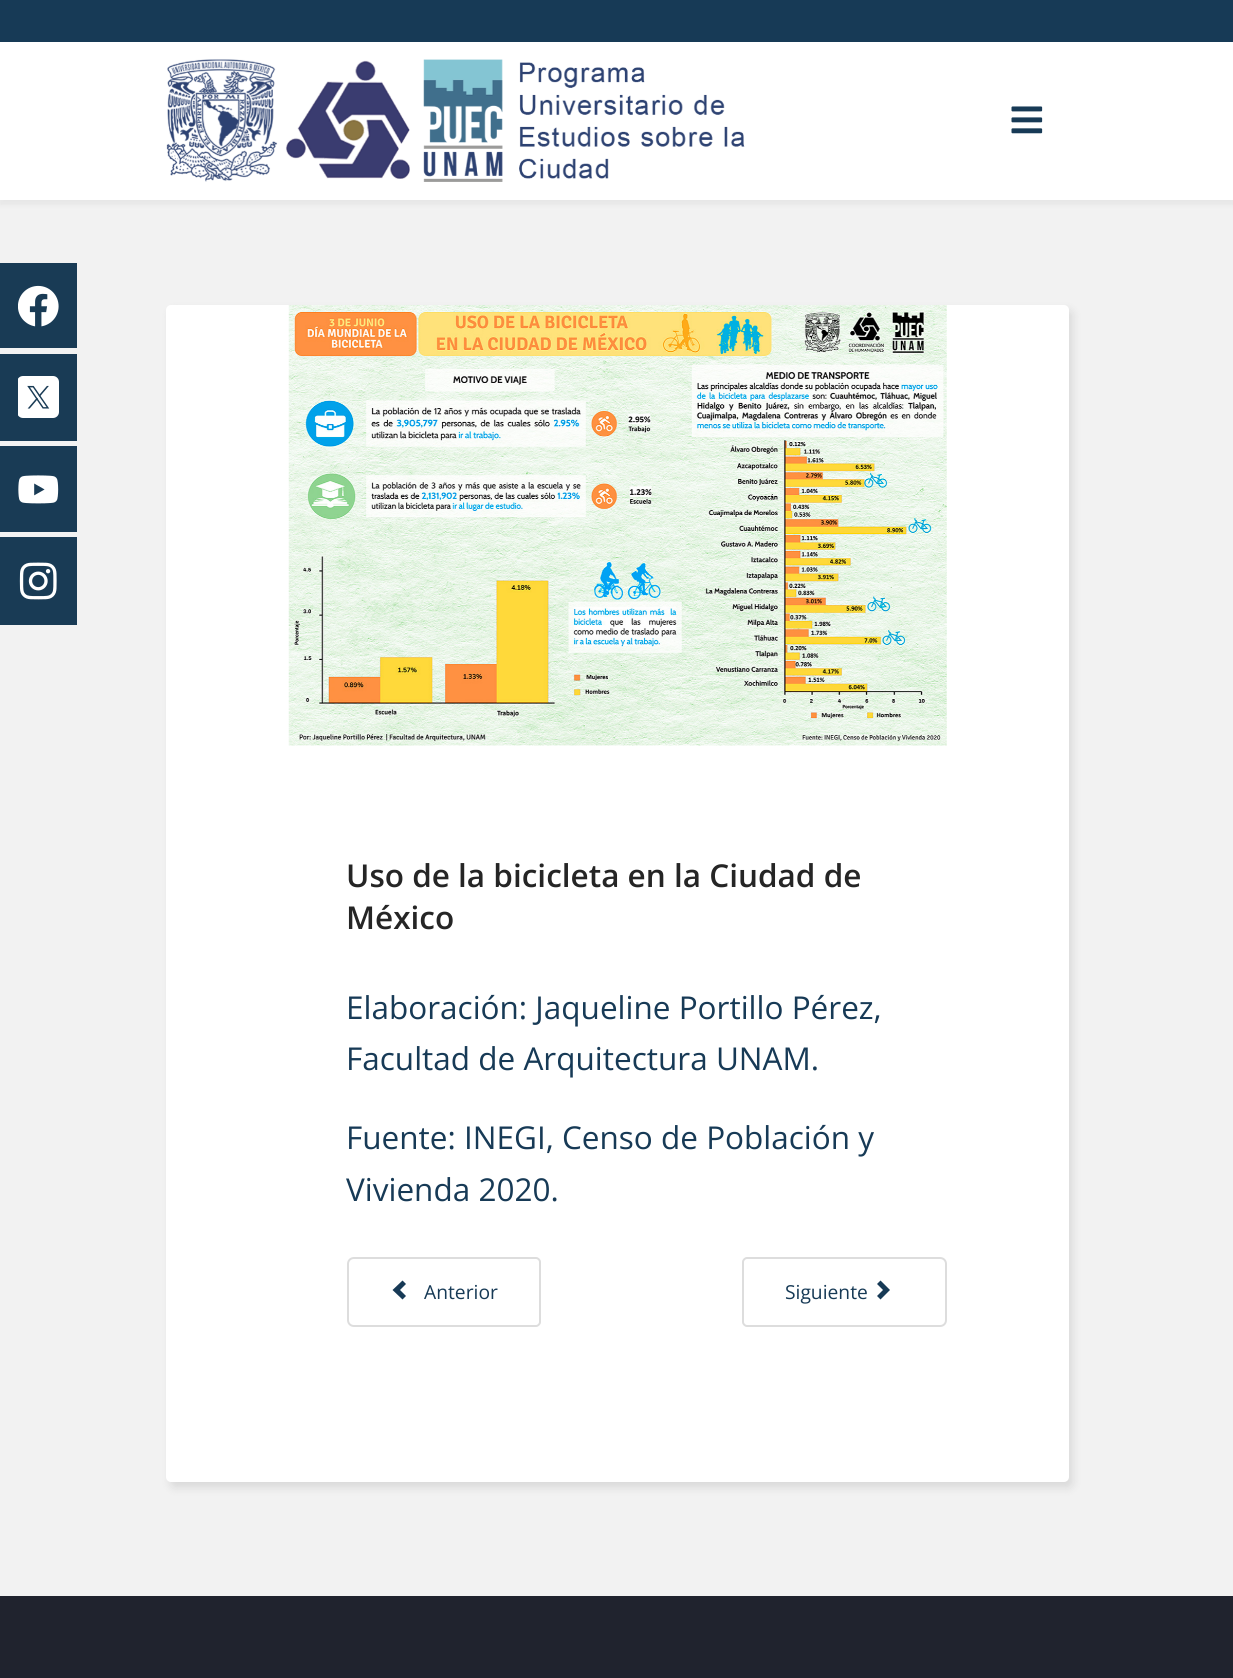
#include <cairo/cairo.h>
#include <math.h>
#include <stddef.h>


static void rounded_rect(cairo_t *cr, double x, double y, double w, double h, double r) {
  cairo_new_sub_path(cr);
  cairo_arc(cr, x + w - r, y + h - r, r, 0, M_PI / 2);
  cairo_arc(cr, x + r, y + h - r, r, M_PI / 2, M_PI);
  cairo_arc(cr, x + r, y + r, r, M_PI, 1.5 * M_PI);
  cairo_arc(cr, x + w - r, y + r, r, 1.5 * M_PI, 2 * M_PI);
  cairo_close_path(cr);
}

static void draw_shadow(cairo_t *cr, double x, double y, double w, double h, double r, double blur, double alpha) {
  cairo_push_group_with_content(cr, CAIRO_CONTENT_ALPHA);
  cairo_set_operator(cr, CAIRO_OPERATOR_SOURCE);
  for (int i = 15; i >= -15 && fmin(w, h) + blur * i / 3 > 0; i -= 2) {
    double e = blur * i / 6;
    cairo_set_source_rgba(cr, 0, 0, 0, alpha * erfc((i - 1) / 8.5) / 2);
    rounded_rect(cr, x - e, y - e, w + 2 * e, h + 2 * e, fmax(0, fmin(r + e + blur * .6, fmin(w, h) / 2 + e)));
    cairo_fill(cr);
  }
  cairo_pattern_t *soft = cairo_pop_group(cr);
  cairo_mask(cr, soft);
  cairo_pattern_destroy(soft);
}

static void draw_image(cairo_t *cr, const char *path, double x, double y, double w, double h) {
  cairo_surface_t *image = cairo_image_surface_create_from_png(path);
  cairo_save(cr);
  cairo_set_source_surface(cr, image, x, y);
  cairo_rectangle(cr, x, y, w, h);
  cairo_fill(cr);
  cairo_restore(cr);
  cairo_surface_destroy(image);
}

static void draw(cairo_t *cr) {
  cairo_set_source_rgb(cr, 242 / 255.0, 242 / 255.0, 242 / 255.0);
  cairo_paint(cr);
  cairo_set_source_rgb(cr, 25 / 255.0, 59 / 255.0, 85 / 255.0);
  cairo_rectangle(cr, 0, 263, 77, 85);
  cairo_fill(cr);
  draw_image(cr, "images/1.png", 18, 285, 41, 42);
  cairo_rectangle(cr, 0, 354, 77, 87);
  cairo_fill(cr);
  draw_image(cr, "images/2.png", 18, 376, 41, 42);
  cairo_rectangle(cr, 0, 446, 77, 86);
  cairo_fill(cr);
  draw_image(cr, "images/3.png", 18, 475, 41, 29);
  cairo_rectangle(cr, 0, 537, 77, 88);
  cairo_fill(cr);
  draw_image(cr, "images/4.png", 19, 562, 38, 38);
  cairo_set_source_rgb(cr, 23 / 255.0, 58 / 255.0, 86 / 255.0);
  cairo_rectangle(cr, 0, 0, 1233, 42);
  cairo_fill(cr);
  cairo_set_source_rgb(cr, 0, 0, 0);
  draw_shadow(cr, 0, 47, 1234, 158, 0, 2.5, 0.05);
  cairo_set_source_rgb(cr, 1, 1, 1);
  cairo_rectangle(cr, 0, 42, 1233, 158);
  cairo_fill(cr);
  draw_image(cr, "images/5.png", 166, 59, 579, 123);
  draw_image(cr, "images/6.png", 1011, 106, 32, 28);
  cairo_set_source_rgb(cr, 0, 0, 0);
  draw_shadow(cr, 170, 310, 903, 1178, 5, 4.5, 0.1);
  cairo_set_source_rgb(cr, 1, 1, 1);
  rounded_rect(cr, 166, 305, 903, 1177, 5);
  cairo_fill(cr);
  draw_image(cr, "images/7.png", 288, 305, 659, 441);
  cairo_new_path(cr);
  cairo_move_to(cr, 354, 1258);
  cairo_line_to(cr, 536, 1258);
  cairo_curve_to(cr, 538, 1258, 540, 1260, 540, 1262);
  cairo_line_to(cr, 540, 1322);
  cairo_curve_to(cr, 540, 1324, 538, 1326, 536, 1326);
  cairo_line_to(cr, 354, 1326);
  cairo_curve_to(cr, 350.5, 1326, 348, 1323.5, 348, 1320);
  cairo_line_to(cr, 348, 1264);
  cairo_curve_to(cr, 348, 1260.5, 350.5, 1258, 354, 1258);
  cairo_close_path(cr);
  cairo_set_source_rgb(cr, 221 / 255.0, 221 / 255.0, 221 / 255.0);
  cairo_stroke(cr);
  cairo_set_source_rgb(cr, 23 / 255.0, 58 / 255.0, 86 / 255.0);
  cairo_new_path(cr);
  cairo_move_to(cr, 402.5, 1299.5);
  cairo_line_to(cr, 392.5, 1290);
  cairo_line_to(cr, 402.5, 1280.5);
  cairo_line_to(cr, 406, 1284);
  cairo_line_to(cr, 400, 1290);
  cairo_line_to(cr, 406, 1296);
  cairo_close_path(cr);
  cairo_fill(cr);
  cairo_new_path(cr);
  cairo_move_to(cr, 747, 1258);
  cairo_line_to(cr, 940, 1258);
  cairo_curve_to(cr, 943.5, 1258, 946, 1260.5, 946, 1264);
  cairo_line_to(cr, 946, 1320);
  cairo_curve_to(cr, 946, 1323.5, 943.5, 1326, 940, 1326);
  cairo_line_to(cr, 747, 1326);
  cairo_curve_to(cr, 745, 1326, 743, 1324, 743, 1322);
  cairo_line_to(cr, 743, 1262);
  cairo_curve_to(cr, 743, 1260, 745, 1258, 747, 1258);
  cairo_close_path(cr);
  cairo_set_source_rgb(cr, 221 / 255.0, 221 / 255.0, 221 / 255.0);
  cairo_stroke(cr);
  cairo_set_source_rgb(cr, 23 / 255.0, 58 / 255.0, 86 / 255.0);
  cairo_new_path(cr);
  cairo_move_to(cr, 880.5, 1280.5);
  cairo_line_to(cr, 890, 1290);
  cairo_line_to(cr, 880.5, 1299.5);
  cairo_line_to(cr, 877, 1296);
  cairo_line_to(cr, 883, 1290);
  cairo_line_to(cr, 877, 1284);
  cairo_close_path(cr);
  cairo_fill(cr);
  cairo_set_source_rgb(cr, 32 / 255.0, 35 / 255.0, 46 / 255.0);
  cairo_rectangle(cr, 0, 1596, 1233, 82);
  cairo_fill(cr);
  cairo_select_font_face(cr, "Open Sans SemiBold", CAIRO_FONT_SLANT_NORMAL, CAIRO_FONT_WEIGHT_NORMAL);
  cairo_set_font_size(cr, 31.5);
  cairo_set_source_rgb(cr, 37 / 255.0, 37 / 255.0, 37 / 255.0);
  cairo_move_to(cr, 346, 887);
  cairo_show_text(cr, "Uso de la bicicleta en la Ciudad de");
  cairo_move_to(cr, 346, 929);
  cairo_show_text(cr, "México");
  cairo_select_font_face(cr, "Open Sans", CAIRO_FONT_SLANT_NORMAL, CAIRO_FONT_WEIGHT_NORMAL);
  cairo_set_source_rgb(cr, 23 / 255.0, 58 / 255.0, 86 / 255.0);
  cairo_move_to(cr, 346, 1019);
  cairo_show_text(cr, "Elaboración: Jaqueline Portillo Pérez,");
  cairo_move_to(cr, 346, 1070);
  cairo_show_text(cr, "Facultad de Arquitectura UNAM.");
  cairo_move_to(cr, 346, 1149);
  cairo_show_text(cr, "Fuente: INEGI, Censo de Población y");
  cairo_move_to(cr, 346, 1201);
  cairo_show_text(cr, "Vivienda 2020.");
  cairo_set_font_size(cr, 19.25);
  cairo_move_to(cr, 424, 1299);
  cairo_show_text(cr, "Anterior");
  cairo_move_to(cr, 785, 1299);
  cairo_show_text(cr, "Siguiente");
}

int main(void) {
  cairo_surface_t *surface = cairo_image_surface_create(CAIRO_FORMAT_RGB24, 1233, 1678);
  cairo_t *cr = cairo_create(surface);
  cairo_font_options_t *options = cairo_font_options_create();
  cairo_font_options_set_hint_metrics(options, CAIRO_HINT_METRICS_OFF);
  cairo_font_options_set_hint_style(options, CAIRO_HINT_STYLE_NONE);
  cairo_set_font_options(cr, options);
  cairo_set_miter_limit(cr, 4);
  draw(cr);
  cairo_surface_write_to_png(surface, "out.png");
  cairo_font_options_destroy(options);
  cairo_destroy(cr);
  cairo_surface_destroy(surface);
  return 0;
}
